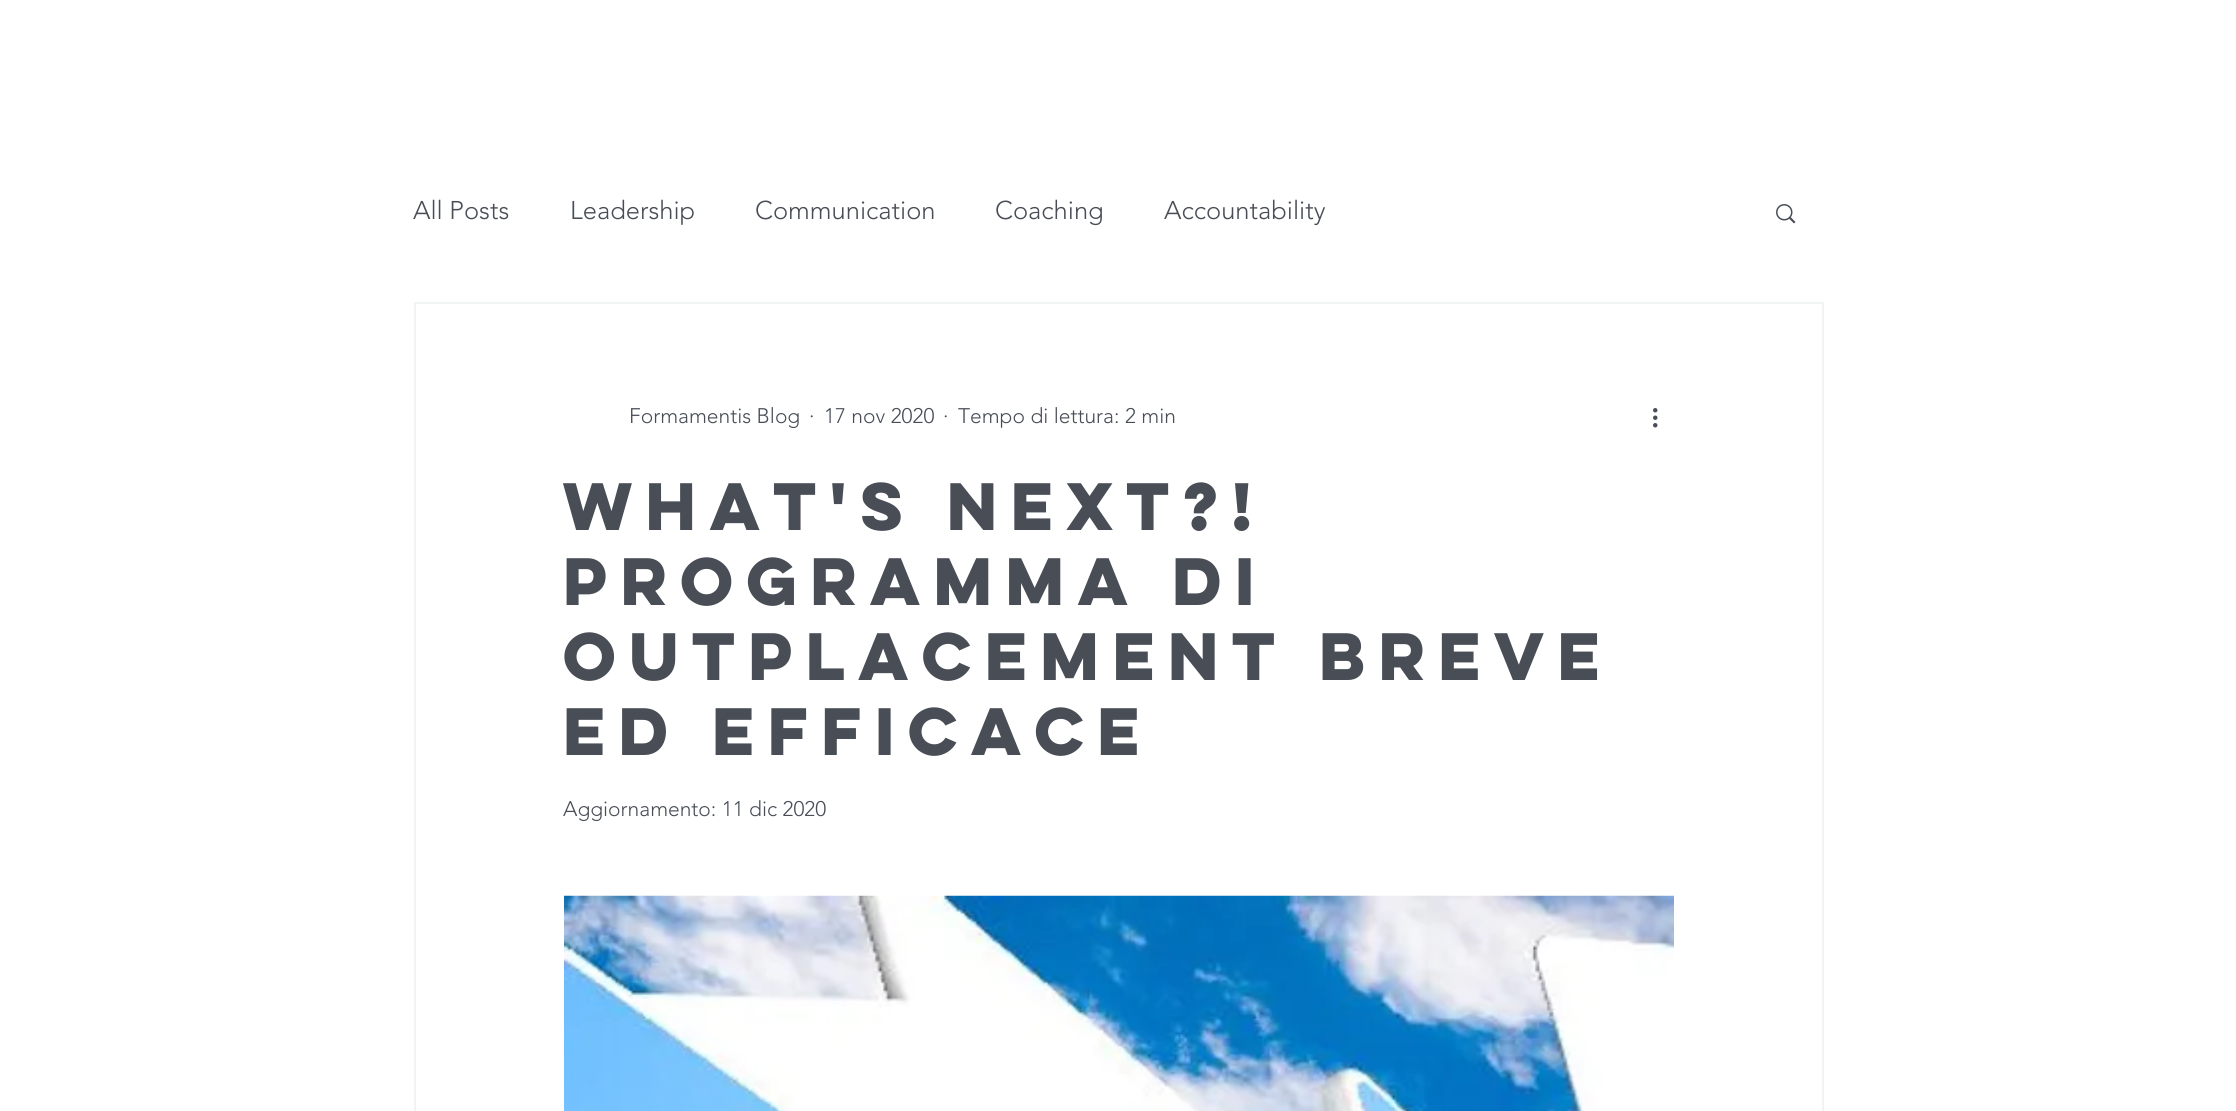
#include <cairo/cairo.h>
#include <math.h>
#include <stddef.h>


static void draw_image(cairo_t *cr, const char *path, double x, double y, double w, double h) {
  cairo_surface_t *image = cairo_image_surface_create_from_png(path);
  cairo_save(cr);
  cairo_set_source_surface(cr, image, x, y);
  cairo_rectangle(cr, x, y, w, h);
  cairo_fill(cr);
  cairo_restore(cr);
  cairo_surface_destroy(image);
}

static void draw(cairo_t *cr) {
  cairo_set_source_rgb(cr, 1, 1, 1);
  cairo_paint(cr);
  draw_image(cr, "images/1.png", 1776, 204, 20, 20);
  cairo_rectangle(cr, 415, 303, 1408, 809);
  cairo_set_source_rgb(cr, 241 / 255.0, 244 / 255.0, 245 / 255.0);
  cairo_stroke(cr);
  draw_image(cr, "images/2.png", 1653, 408, 5, 20);
  draw_image(cr, "images/3.png", 564, 895, 1110, 216);
  cairo_select_font_face(cr, "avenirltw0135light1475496 Light", CAIRO_FONT_SLANT_NORMAL, CAIRO_FONT_WEIGHT_NORMAL);
  cairo_set_font_size(cr, 25.5);
  cairo_set_source_rgb(cr, 72 / 255.0, 77 / 255.0, 86 / 255.0);
  cairo_move_to(cr, 413, 219);
  cairo_show_text(cr, "All Posts");
  cairo_move_to(cr, 570, 219);
  cairo_show_text(cr, "Leadership");
  cairo_move_to(cr, 755, 219);
  cairo_show_text(cr, "Communication");
  cairo_move_to(cr, 995, 219);
  cairo_show_text(cr, "Coaching");
  cairo_move_to(cr, 1164, 219);
  cairo_show_text(cr, "Accountability");
  cairo_set_font_size(cr, 21);
  cairo_move_to(cr, 629, 423);
  cairo_show_text(cr, "Formamentis Blog");
  cairo_move_to(cr, 809, 423);
  cairo_show_text(cr, "·");
  cairo_move_to(cr, 824, 423);
  cairo_show_text(cr, "17 nov 2020");
  cairo_move_to(cr, 943, 423);
  cairo_show_text(cr, "·");
  cairo_move_to(cr, 958, 423);
  cairo_show_text(cr, "Tempo di lettura: 2 min");
  cairo_select_font_face(cr, "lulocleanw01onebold", CAIRO_FONT_SLANT_NORMAL, CAIRO_FONT_WEIGHT_BOLD);
  cairo_set_font_size(cr, 60);
  cairo_move_to(cr, 563, 530);
  cairo_show_text(cr, "WHAT'S NEXT?!");
  cairo_move_to(cr, 563, 605);
  cairo_show_text(cr, "PROGRAMMA DI");
  cairo_move_to(cr, 563, 680);
  cairo_show_text(cr, "OUTPLACEMENT BREVE");
  cairo_move_to(cr, 563, 755);
  cairo_show_text(cr, "ED EFFICACE");
  cairo_select_font_face(cr, "avenirltw0135light1475496 Light", CAIRO_FONT_SLANT_NORMAL, CAIRO_FONT_WEIGHT_NORMAL);
  cairo_set_font_size(cr, 21);
  cairo_move_to(cr, 563, 816);
  cairo_show_text(cr, "Aggiornamento: 11 dic 2020");
}

int main(void) {
  cairo_surface_t *surface = cairo_image_surface_create(CAIRO_FORMAT_RGB24, 2236, 1111);
  cairo_t *cr = cairo_create(surface);
  cairo_font_options_t *options = cairo_font_options_create();
  cairo_font_options_set_hint_metrics(options, CAIRO_HINT_METRICS_OFF);
  cairo_font_options_set_hint_style(options, CAIRO_HINT_STYLE_NONE);
  cairo_set_font_options(cr, options);
  cairo_set_miter_limit(cr, 4);
  draw(cr);
  cairo_surface_write_to_png(surface, "out.png");
  cairo_font_options_destroy(options);
  cairo_destroy(cr);
  cairo_surface_destroy(surface);
  return 0;
}
